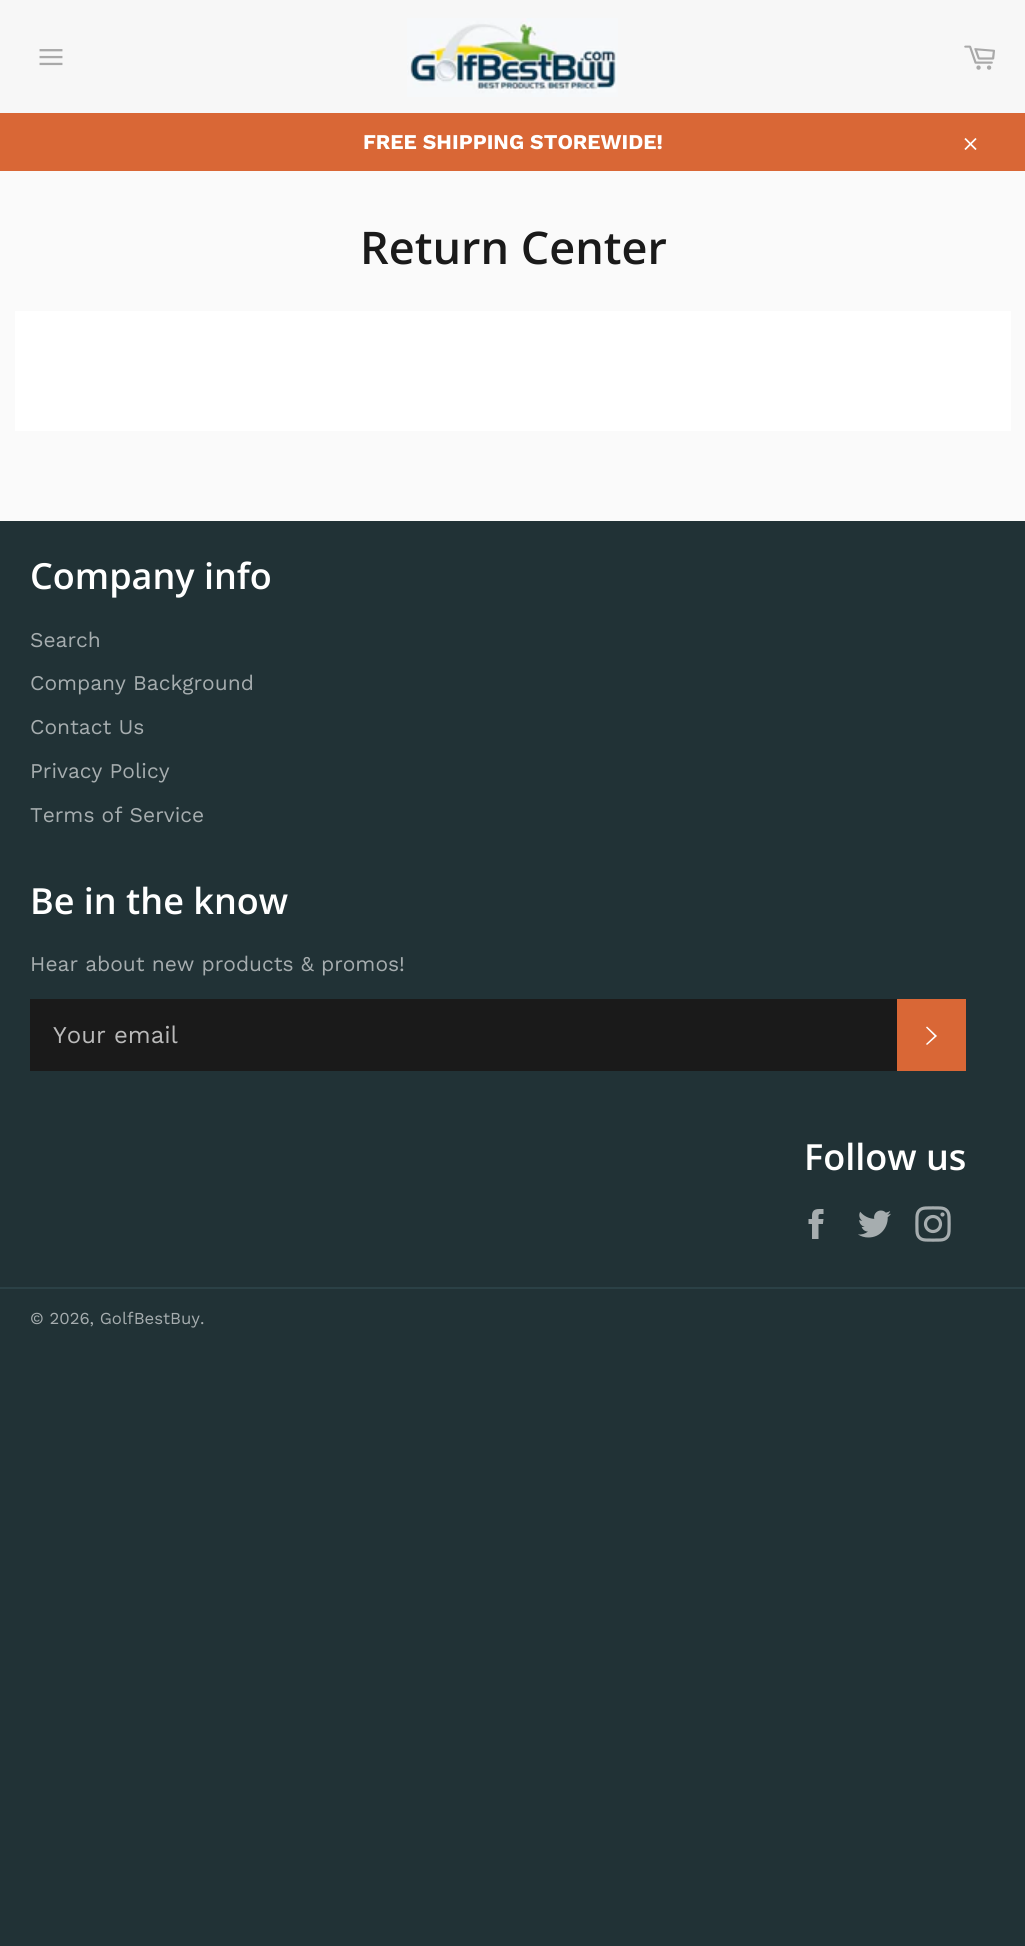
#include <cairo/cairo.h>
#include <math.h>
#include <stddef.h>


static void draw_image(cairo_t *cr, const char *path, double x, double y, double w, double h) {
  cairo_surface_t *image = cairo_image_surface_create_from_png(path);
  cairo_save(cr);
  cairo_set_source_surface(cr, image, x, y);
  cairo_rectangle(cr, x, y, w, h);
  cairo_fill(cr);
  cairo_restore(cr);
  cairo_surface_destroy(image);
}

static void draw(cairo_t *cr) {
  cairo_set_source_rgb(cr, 33 / 255.0, 50 / 255.0, 54 / 255.0);
  cairo_paint(cr);
  cairo_set_source_rgb(cr, 250 / 255.0, 250 / 255.0, 250 / 255.0);
  cairo_rectangle(cr, 0, 171, 1025, 350);
  cairo_fill(cr);
  cairo_set_source_rgb(cr, 247 / 255.0, 247 / 255.0, 247 / 255.0);
  cairo_rectangle(cr, 0, 0, 1025, 113);
  cairo_fill(cr);
  draw_image(cr, "images/1.png", 39, 49, 24, 17);
  draw_image(cr, "images/2.png", 407, 18, 211, 79);
  draw_image(cr, "images/3.png", 964, 45, 31, 25);
  cairo_set_source_rgb(cr, 217 / 255.0, 103 / 255.0, 54 / 255.0);
  cairo_rectangle(cr, 0, 113, 1025, 58);
  cairo_fill(cr);
  draw_image(cr, "images/4.png", 964, 138, 13, 12);
  cairo_set_source_rgb(cr, 1, 1, 1);
  cairo_rectangle(cr, 15, 311, 996, 120);
  cairo_fill(cr);
  cairo_set_source_rgb(cr, 26 / 255.0, 26 / 255.0, 26 / 255.0);
  cairo_rectangle(cr, 30, 999, 867, 72);
  cairo_fill(cr);
  cairo_set_source_rgb(cr, 217 / 255.0, 103 / 255.0, 54 / 255.0);
  cairo_rectangle(cr, 897, 999, 69, 72);
  cairo_fill(cr);
  cairo_set_source_rgb(cr, 1, 1, 1);
  cairo_new_path(cr);
  cairo_move_to(cr, 926, 1027.5);
  cairo_line_to(cr, 927, 1026.5);
  cairo_line_to(cr, 937, 1036);
  cairo_line_to(cr, 927, 1045);
  cairo_line_to(cr, 926, 1044);
  cairo_line_to(cr, 934.5, 1036);
  cairo_close_path(cr);
  cairo_fill(cr);
  draw_image(cr, "images/5.png", 808, 1209, 16, 30);
  draw_image(cr, "images/6.png", 858, 1210, 33, 28);
  draw_image(cr, "images/7.png", 915, 1206, 36, 36);
  cairo_set_source_rgb(cr, 43 / 255.0, 65 / 255.0, 70 / 255.0);
  cairo_rectangle(cr, 0, 1287, 1025, 2);
  cairo_fill(cr);
  cairo_select_font_face(cr, "Work Sans", CAIRO_FONT_SLANT_NORMAL, CAIRO_FONT_WEIGHT_BOLD);
  cairo_set_font_size(cr, 21);
  cairo_set_source_rgb(cr, 1, 1, 1);
  cairo_move_to(cr, 363, 149);
  cairo_show_text(cr, "FREE SHIPPING STOREWIDE!");
  cairo_select_font_face(cr, "Open Sans SemiBold", CAIRO_FONT_SLANT_NORMAL, CAIRO_FONT_WEIGHT_NORMAL);
  cairo_set_font_size(cr, 45);
  cairo_set_source_rgb(cr, 26 / 255.0, 26 / 255.0, 26 / 255.0);
  cairo_move_to(cr, 360, 264);
  cairo_show_text(cr, "Return Center");
  cairo_set_font_size(cr, 36);
  cairo_set_source_rgb(cr, 1, 1, 1);
  cairo_move_to(cr, 30, 589);
  cairo_show_text(cr, "Company info");
  cairo_select_font_face(cr, "Work Sans", CAIRO_FONT_SLANT_NORMAL, CAIRO_FONT_WEIGHT_NORMAL);
  cairo_set_font_size(cr, 21);
  cairo_set_source_rgb(cr, 166 / 255.0, 173 / 255.0, 175 / 255.0);
  cairo_move_to(cr, 30, 647);
  cairo_show_text(cr, "Search");
  cairo_move_to(cr, 30, 690);
  cairo_show_text(cr, "Company Background");
  cairo_move_to(cr, 30, 734);
  cairo_show_text(cr, "Contact Us");
  cairo_move_to(cr, 30, 778);
  cairo_show_text(cr, "Privacy Policy");
  cairo_move_to(cr, 30, 822);
  cairo_show_text(cr, "Terms of Service");
  cairo_select_font_face(cr, "Open Sans SemiBold", CAIRO_FONT_SLANT_NORMAL, CAIRO_FONT_WEIGHT_NORMAL);
  cairo_set_font_size(cr, 36);
  cairo_set_source_rgb(cr, 1, 1, 1);
  cairo_move_to(cr, 30, 914);
  cairo_show_text(cr, "Be in the know");
  cairo_select_font_face(cr, "Work Sans", CAIRO_FONT_SLANT_NORMAL, CAIRO_FONT_WEIGHT_NORMAL);
  cairo_set_font_size(cr, 21);
  cairo_set_source_rgb(cr, 166 / 255.0, 173 / 255.0, 175 / 255.0);
  cairo_move_to(cr, 30, 971);
  cairo_show_text(cr, "Hear about new products & promos!");
  cairo_set_font_size(cr, 24);
  cairo_set_source_rgb(cr, 186 / 255.0, 186 / 255.0, 186 / 255.0);
  cairo_move_to(cr, 53, 1043);
  cairo_show_text(cr, "Your email");
  cairo_select_font_face(cr, "Open Sans SemiBold", CAIRO_FONT_SLANT_NORMAL, CAIRO_FONT_WEIGHT_NORMAL);
  cairo_set_font_size(cr, 36);
  cairo_set_source_rgb(cr, 1, 1, 1);
  cairo_move_to(cr, 804, 1170);
  cairo_show_text(cr, "Follow us");
  cairo_select_font_face(cr, "Work Sans", CAIRO_FONT_SLANT_NORMAL, CAIRO_FONT_WEIGHT_NORMAL);
  cairo_set_font_size(cr, 16.75);
  cairo_set_source_rgb(cr, 166 / 255.0, 173 / 255.0, 175 / 255.0);
  cairo_move_to(cr, 30, 1324);
  cairo_show_text(cr, "© 2026, GolfBestBuy.");
}

int main(void) {
  cairo_surface_t *surface = cairo_image_surface_create(CAIRO_FORMAT_RGB24, 1025, 1946);
  cairo_t *cr = cairo_create(surface);
  cairo_font_options_t *options = cairo_font_options_create();
  cairo_font_options_set_hint_metrics(options, CAIRO_HINT_METRICS_OFF);
  cairo_font_options_set_hint_style(options, CAIRO_HINT_STYLE_NONE);
  cairo_set_font_options(cr, options);
  cairo_set_miter_limit(cr, 4);
  draw(cr);
  cairo_surface_write_to_png(surface, "out.png");
  cairo_font_options_destroy(options);
  cairo_destroy(cr);
  cairo_surface_destroy(surface);
  return 0;
}
